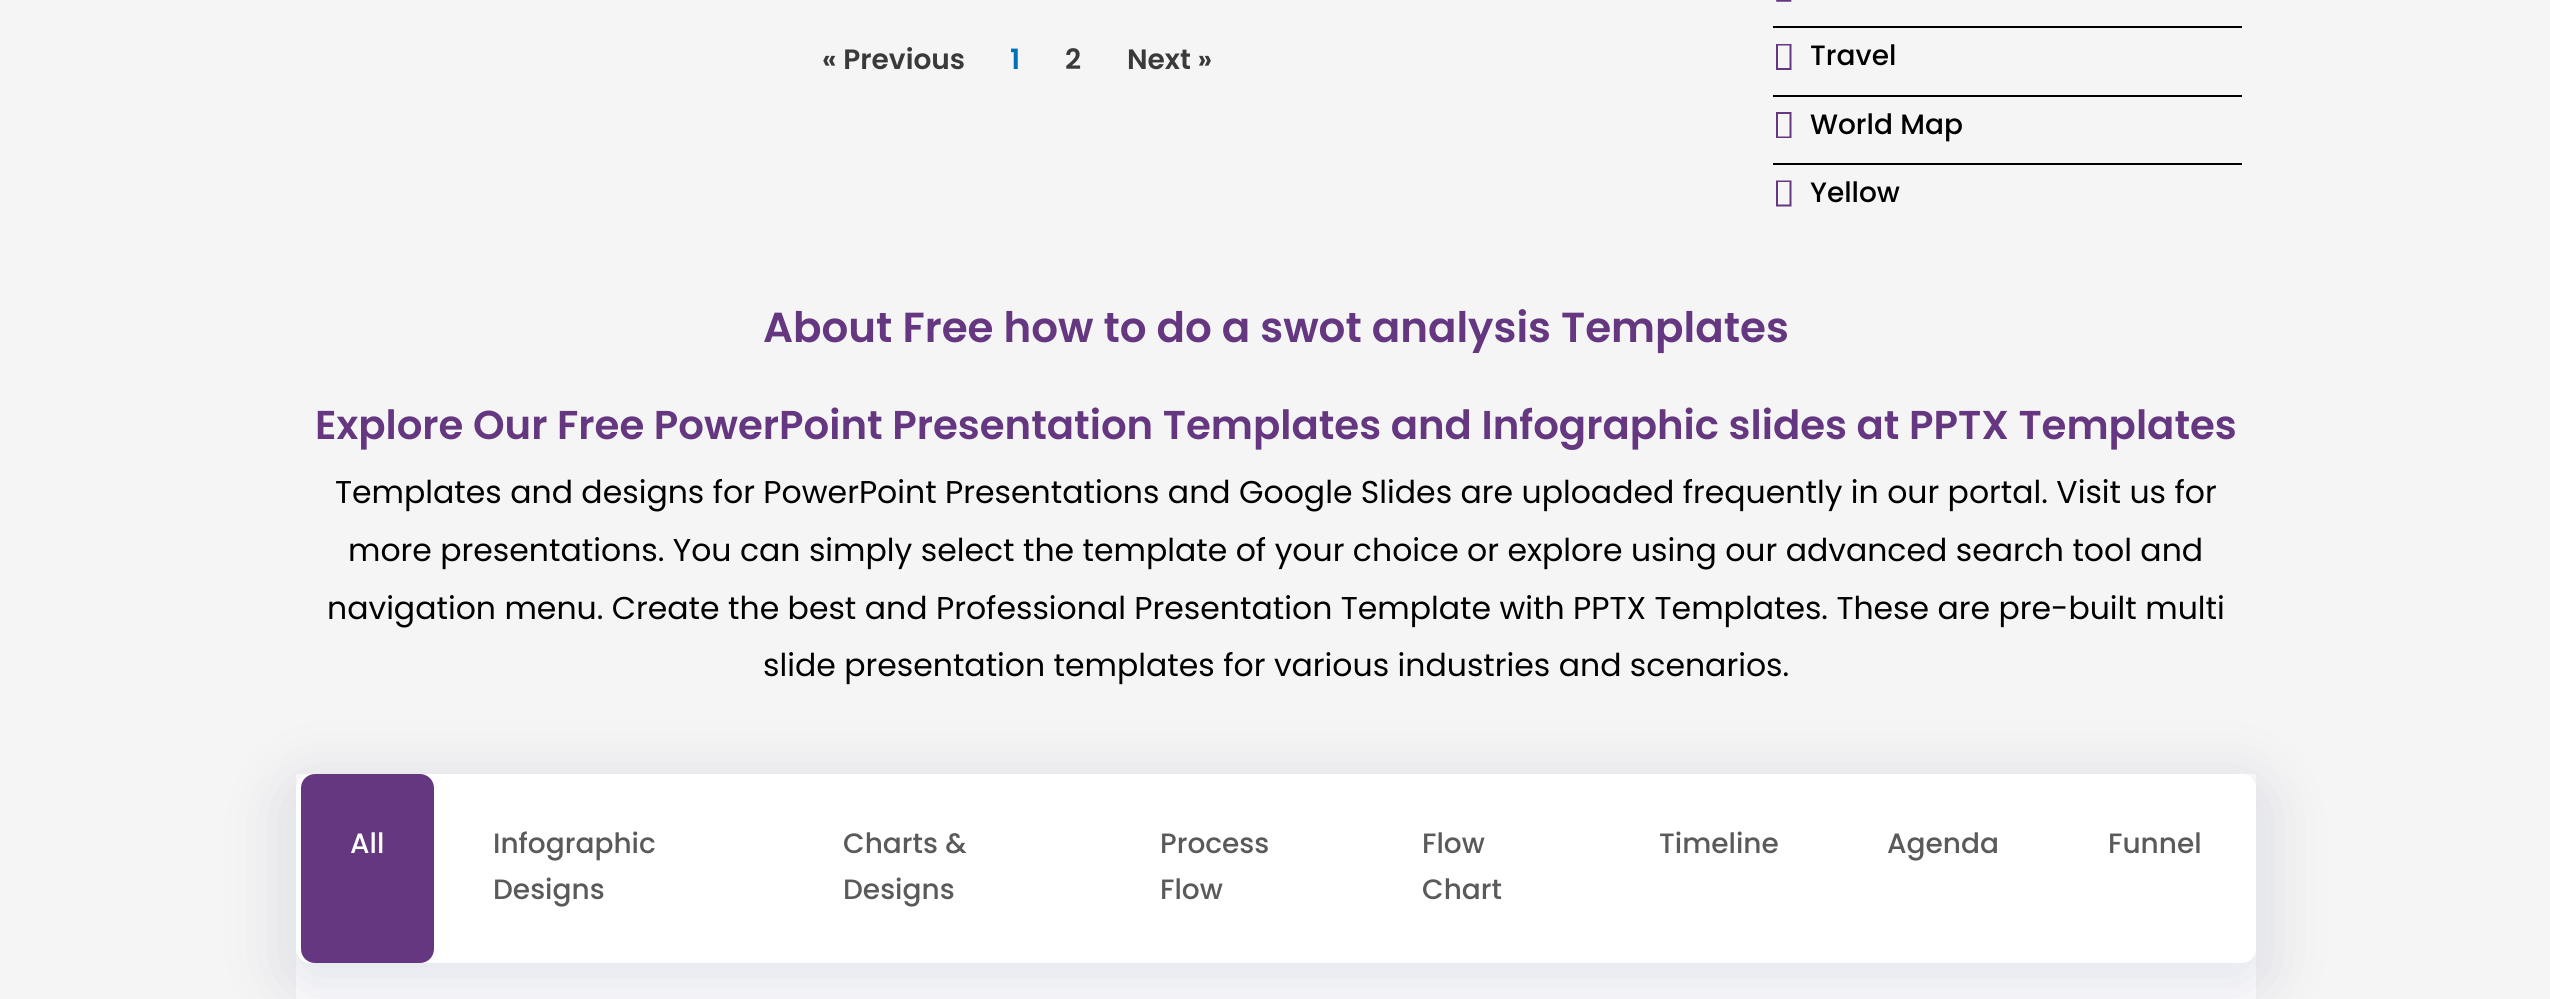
#include <cairo/cairo.h>
#include <math.h>
#include <stddef.h>


static void rounded_rect(cairo_t *cr, double x, double y, double w, double h, double r) {
  cairo_new_sub_path(cr);
  cairo_arc(cr, x + w - r, y + h - r, r, 0, M_PI / 2);
  cairo_arc(cr, x + r, y + h - r, r, M_PI / 2, M_PI);
  cairo_arc(cr, x + r, y + r, r, M_PI, 1.5 * M_PI);
  cairo_arc(cr, x + w - r, y + r, r, 1.5 * M_PI, 2 * M_PI);
  cairo_close_path(cr);
}

static void draw_shadow(cairo_t *cr, double x, double y, double w, double h, double r, double blur, double alpha) {
  cairo_push_group_with_content(cr, CAIRO_CONTENT_ALPHA);
  cairo_set_operator(cr, CAIRO_OPERATOR_SOURCE);
  for (int i = 15; i >= -15 && fmin(w, h) + blur * i / 3 > 0; i -= 2) {
    double e = blur * i / 6;
    cairo_set_source_rgba(cr, 0, 0, 0, alpha * erfc((i - 1) / 8.5) / 2);
    rounded_rect(cr, x - e, y - e, w + 2 * e, h + 2 * e, fmax(0, fmin(r + e + blur * .6, fmin(w, h) / 2 + e)));
    cairo_fill(cr);
  }
  cairo_pattern_t *soft = cairo_pop_group(cr);
  cairo_mask(cr, soft);
  cairo_pattern_destroy(soft);
}

static void draw_image(cairo_t *cr, const char *path, double x, double y, double w, double h) {
  cairo_surface_t *image = cairo_image_surface_create_from_png(path);
  cairo_save(cr);
  cairo_set_source_surface(cr, image, x, y);
  cairo_rectangle(cr, x, y, w, h);
  cairo_fill(cr);
  cairo_restore(cr);
  cairo_surface_destroy(image);
}

static void draw(cairo_t *cr) {
  cairo_set_source_rgb(cr, 245 / 255.0, 245 / 255.0, 245 / 255.0);
  cairo_paint(cr);
  draw_image(cr, "images/1.png", 1776, 0, 16, 2);
  cairo_set_source_rgb(cr, 0, 0, 0);
  cairo_rectangle(cr, 1773, 26, 469, 2);
  cairo_fill(cr);
  cairo_set_source_rgb(cr, 101 / 255.0, 55 / 255.0, 128 / 255.0);
  cairo_new_path(cr);
  cairo_move_to(cr, 1776, 70);
  cairo_line_to(cr, 1776, 44);
  cairo_line_to(cr, 1791.5, 44);
  cairo_line_to(cr, 1791.5, 70);
  cairo_close_path(cr);
  cairo_move_to(cr, 1778, 68);
  cairo_line_to(cr, 1789.5, 68);
  cairo_line_to(cr, 1789.5, 45.5);
  cairo_line_to(cr, 1778, 45.5);
  cairo_close_path(cr);
  cairo_fill(cr);
  cairo_set_source_rgb(cr, 0, 0, 0);
  cairo_rectangle(cr, 1773, 95, 469, 2);
  cairo_fill(cr);
  cairo_set_source_rgb(cr, 101 / 255.0, 55 / 255.0, 128 / 255.0);
  cairo_new_path(cr);
  cairo_move_to(cr, 1776, 138);
  cairo_line_to(cr, 1776, 112);
  cairo_line_to(cr, 1791.5, 112);
  cairo_line_to(cr, 1791.5, 138);
  cairo_close_path(cr);
  cairo_move_to(cr, 1778, 136.5);
  cairo_line_to(cr, 1789.5, 136.5);
  cairo_line_to(cr, 1789.5, 114);
  cairo_line_to(cr, 1778, 114);
  cairo_close_path(cr);
  cairo_fill(cr);
  cairo_set_source_rgb(cr, 0, 0, 0);
  cairo_rectangle(cr, 1773, 163, 469, 2);
  cairo_fill(cr);
  cairo_set_source_rgb(cr, 101 / 255.0, 55 / 255.0, 128 / 255.0);
  cairo_new_path(cr);
  cairo_move_to(cr, 1776, 206.5);
  cairo_line_to(cr, 1776, 180.5);
  cairo_line_to(cr, 1791.5, 180.5);
  cairo_line_to(cr, 1791.5, 206.5);
  cairo_close_path(cr);
  cairo_move_to(cr, 1778, 204.5);
  cairo_line_to(cr, 1789.5, 204.5);
  cairo_line_to(cr, 1789.5, 182);
  cairo_line_to(cr, 1778, 182);
  cairo_close_path(cr);
  cairo_fill(cr);
  cairo_set_source_rgb(cr, 1, 1, 1);
  cairo_rectangle(cr, 296, 774, 1960, 225);
  cairo_fill(cr);
  cairo_set_source_rgb(cr, 0, 9 / 255.0, 78 / 255.0);
  draw_shadow(cr, 282, 777, 1988, 217, 28, 30.5, 0.1);
  cairo_set_source_rgb(cr, 1, 1, 1);
  rounded_rect(cr, 296, 774, 1960, 189, 14);
  cairo_fill(cr);
  cairo_set_source_rgb(cr, 101 / 255.0, 55 / 255.0, 128 / 255.0);
  rounded_rect(cr, 301, 774, 133, 189, 14);
  cairo_fill(cr);
  cairo_select_font_face(cr, "Poppins SemiBold", CAIRO_FONT_SLANT_NORMAL, CAIRO_FONT_WEIGHT_NORMAL);
  cairo_set_font_size(cr, 28);
  cairo_set_source_rgb(cr, 58 / 255.0, 58 / 255.0, 58 / 255.0);
  cairo_move_to(cr, 822, 69);
  cairo_show_text(cr, "« Previous");
  cairo_set_source_rgb(cr, 1 / 255.0, 112 / 255.0, 185 / 255.0);
  cairo_move_to(cr, 1010, 69);
  cairo_show_text(cr, "1");
  cairo_set_source_rgb(cr, 58 / 255.0, 58 / 255.0, 58 / 255.0);
  cairo_move_to(cr, 1065, 69);
  cairo_show_text(cr, "2");
  cairo_move_to(cr, 1127, 69);
  cairo_show_text(cr, "Next »");
  cairo_select_font_face(cr, "Poppins Medium", CAIRO_FONT_SLANT_NORMAL, CAIRO_FONT_WEIGHT_NORMAL);
  cairo_set_source_rgb(cr, 0, 0, 0);
  cairo_move_to(cr, 1810, 65);
  cairo_show_text(cr, "Travel");
  cairo_move_to(cr, 1810, 134);
  cairo_show_text(cr, "World Map");
  cairo_move_to(cr, 1810, 202);
  cairo_show_text(cr, "Yellow");
  cairo_select_font_face(cr, "Poppins SemiBold", CAIRO_FONT_SLANT_NORMAL, CAIRO_FONT_WEIGHT_NORMAL);
  cairo_set_font_size(cr, 42);
  cairo_set_source_rgb(cr, 101 / 255.0, 55 / 255.0, 128 / 255.0);
  cairo_move_to(cr, 763, 342);
  cairo_show_text(cr, "About Free how to do a swot analysis Templates");
  cairo_set_font_size(cr, 40.25);
  cairo_move_to(cr, 315, 439);
  cairo_show_text(cr, "Explore Our Free PowerPoint Presentation Templates and Infographic slides at PPTX Templates");
  cairo_select_font_face(cr, "Poppins", CAIRO_FONT_SLANT_NORMAL, CAIRO_FONT_WEIGHT_NORMAL);
  cairo_set_font_size(cr, 31.5);
  cairo_set_source_rgb(cr, 0, 0, 0);
  cairo_move_to(cr, 335, 503);
  cairo_show_text(cr, "Templates and designs for PowerPoint Presentations and Google Slides are uploaded frequently in our portal. Visit us for");
  cairo_move_to(cr, 348, 561);
  cairo_show_text(cr, "more presentations. You can simply select the template of your choice or explore using our advanced search tool and");
  cairo_move_to(cr, 327, 619);
  cairo_show_text(cr, "navigation menu. Create the best and Professional Presentation Template with PPTX Templates. These are pre-built multi");
  cairo_move_to(cr, 763, 676);
  cairo_show_text(cr, "slide presentation templates for various industries and scenarios.");
  cairo_select_font_face(cr, "Poppins Medium", CAIRO_FONT_SLANT_NORMAL, CAIRO_FONT_WEIGHT_NORMAL);
  cairo_set_font_size(cr, 28);
  cairo_set_source_rgb(cr, 1, 1, 1);
  cairo_move_to(cr, 350, 853);
  cairo_show_text(cr, "All");
  cairo_set_source_rgb(cr, 90 / 255.0, 90 / 255.0, 90 / 255.0);
  cairo_move_to(cr, 493, 853);
  cairo_show_text(cr, "Infographic");
  cairo_move_to(cr, 493, 899);
  cairo_show_text(cr, "Designs");
  cairo_move_to(cr, 843, 853);
  cairo_show_text(cr, "Charts &");
  cairo_move_to(cr, 843, 899);
  cairo_show_text(cr, "Designs");
  cairo_move_to(cr, 1160, 853);
  cairo_show_text(cr, "Process");
  cairo_move_to(cr, 1160, 899);
  cairo_show_text(cr, "Flow");
  cairo_move_to(cr, 1422, 853);
  cairo_show_text(cr, "Flow");
  cairo_move_to(cr, 1422, 899);
  cairo_show_text(cr, "Chart");
  cairo_move_to(cr, 1659, 853);
  cairo_show_text(cr, "Timeline");
  cairo_move_to(cr, 1887, 853);
  cairo_show_text(cr, "Agenda");
  cairo_move_to(cr, 2108, 853);
  cairo_show_text(cr, "Funnel");
}

int main(void) {
  cairo_surface_t *surface = cairo_image_surface_create(CAIRO_FORMAT_RGB24, 2550, 999);
  cairo_t *cr = cairo_create(surface);
  cairo_font_options_t *options = cairo_font_options_create();
  cairo_font_options_set_hint_metrics(options, CAIRO_HINT_METRICS_OFF);
  cairo_font_options_set_hint_style(options, CAIRO_HINT_STYLE_NONE);
  cairo_set_font_options(cr, options);
  cairo_set_miter_limit(cr, 4);
  draw(cr);
  cairo_surface_write_to_png(surface, "out.png");
  cairo_font_options_destroy(options);
  cairo_destroy(cr);
  cairo_surface_destroy(surface);
  return 0;
}
